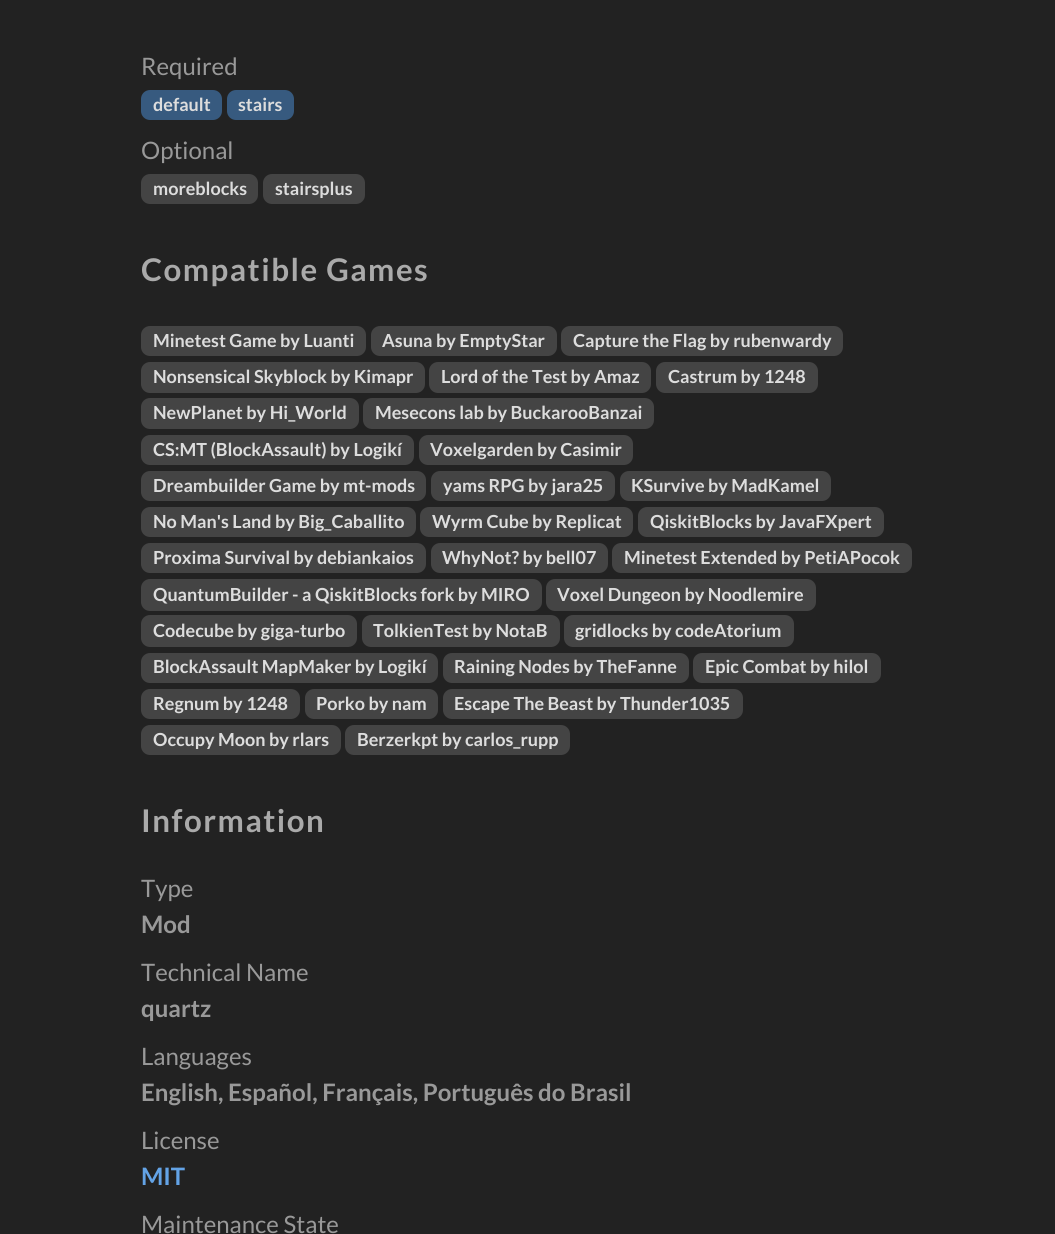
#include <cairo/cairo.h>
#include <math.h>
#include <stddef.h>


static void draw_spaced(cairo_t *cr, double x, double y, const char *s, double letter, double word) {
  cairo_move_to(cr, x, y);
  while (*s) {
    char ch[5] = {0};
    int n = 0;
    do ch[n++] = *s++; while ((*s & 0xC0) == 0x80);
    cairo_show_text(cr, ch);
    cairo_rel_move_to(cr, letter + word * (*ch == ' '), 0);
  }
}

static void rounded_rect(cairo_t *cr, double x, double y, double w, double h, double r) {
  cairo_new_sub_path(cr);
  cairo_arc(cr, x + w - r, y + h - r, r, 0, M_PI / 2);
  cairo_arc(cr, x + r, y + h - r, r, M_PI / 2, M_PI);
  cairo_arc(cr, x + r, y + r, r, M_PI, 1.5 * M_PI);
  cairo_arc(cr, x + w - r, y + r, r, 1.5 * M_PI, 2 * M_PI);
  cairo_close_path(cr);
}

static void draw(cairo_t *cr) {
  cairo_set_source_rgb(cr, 34 / 255.0, 34 / 255.0, 34 / 255.0);
  cairo_paint(cr);
  cairo_set_source_rgb(cr, 55 / 255.0, 90 / 255.0, 127 / 255.0);
  rounded_rect(cr, 141, 90, 81, 30, 9);
  cairo_fill(cr);
  rounded_rect(cr, 227, 90, 67, 30, 9);
  cairo_fill(cr);
  cairo_set_source_rgb(cr, 68 / 255.0, 68 / 255.0, 68 / 255.0);
  rounded_rect(cr, 141, 174, 117, 30, 9);
  cairo_fill(cr);
  rounded_rect(cr, 263, 174, 102, 30, 9);
  cairo_fill(cr);
  rounded_rect(cr, 141, 326, 225, 30, 9);
  cairo_fill(cr);
  rounded_rect(cr, 371, 326, 186, 30, 9);
  cairo_fill(cr);
  rounded_rect(cr, 561, 326, 282, 30, 9);
  cairo_fill(cr);
  rounded_rect(cr, 141, 362, 284, 31, 9);
  cairo_fill(cr);
  rounded_rect(cr, 429, 362, 222, 31, 9);
  cairo_fill(cr);
  rounded_rect(cr, 656, 362, 162, 31, 9);
  cairo_fill(cr);
  rounded_rect(cr, 141, 398, 218, 31, 9);
  cairo_fill(cr);
  rounded_rect(cr, 363, 398, 291, 31, 9);
  cairo_fill(cr);
  rounded_rect(cr, 141, 435, 273, 30, 9);
  cairo_fill(cr);
  rounded_rect(cr, 419, 435, 214, 30, 9);
  cairo_fill(cr);
  rounded_rect(cr, 141, 471, 285, 30, 9);
  cairo_fill(cr);
  rounded_rect(cr, 431, 471, 184, 30, 9);
  cairo_fill(cr);
  rounded_rect(cr, 620, 471, 211, 30, 9);
  cairo_fill(cr);
  rounded_rect(cr, 141, 507, 275, 30, 9);
  cairo_fill(cr);
  rounded_rect(cr, 420, 507, 213, 30, 9);
  cairo_fill(cr);
  rounded_rect(cr, 638, 507, 246, 30, 9);
  cairo_fill(cr);
  rounded_rect(cr, 141, 543, 285, 30, 9);
  cairo_fill(cr);
  rounded_rect(cr, 431, 543, 177, 30, 9);
  cairo_fill(cr);
  rounded_rect(cr, 612, 543, 300, 30, 9);
  cairo_fill(cr);
  rounded_rect(cr, 141, 579, 401, 32, 9);
  cairo_fill(cr);
  rounded_rect(cr, 546, 579, 270, 32, 9);
  cairo_fill(cr);
  rounded_rect(cr, 141, 615, 216, 32, 9);
  cairo_fill(cr);
  rounded_rect(cr, 362, 615, 198, 32, 9);
  cairo_fill(cr);
  rounded_rect(cr, 564, 615, 230, 32, 9);
  cairo_fill(cr);
  rounded_rect(cr, 141, 653, 297, 30, 9);
  cairo_fill(cr);
  rounded_rect(cr, 443, 653, 246, 30, 9);
  cairo_fill(cr);
  rounded_rect(cr, 693, 653, 188, 30, 9);
  cairo_fill(cr);
  rounded_rect(cr, 141, 689, 159, 30, 9);
  cairo_fill(cr);
  rounded_rect(cr, 305, 689, 133, 30, 9);
  cairo_fill(cr);
  rounded_rect(cr, 443, 689, 300, 30, 9);
  cairo_fill(cr);
  rounded_rect(cr, 141, 725, 200, 30, 9);
  cairo_fill(cr);
  rounded_rect(cr, 345, 725, 225, 30, 9);
  cairo_fill(cr);
  cairo_select_font_face(cr, "Lato", CAIRO_FONT_SLANT_NORMAL, CAIRO_FONT_WEIGHT_NORMAL);
  cairo_set_font_size(cr, 24);
  cairo_set_source_rgb(cr, 153 / 255.0, 153 / 255.0, 153 / 255.0);
  cairo_move_to(cr, 141, 75);
  cairo_show_text(cr, "Required");
  cairo_select_font_face(cr, "Lato", CAIRO_FONT_SLANT_NORMAL, CAIRO_FONT_WEIGHT_BOLD);
  cairo_set_font_size(cr, 18);
  cairo_set_source_rgb(cr, 221 / 255.0, 221 / 255.0, 221 / 255.0);
  cairo_move_to(cr, 153, 111);
  cairo_show_text(cr, "default");
  cairo_move_to(cr, 238, 111);
  cairo_show_text(cr, "stairs");
  cairo_select_font_face(cr, "Lato", CAIRO_FONT_SLANT_NORMAL, CAIRO_FONT_WEIGHT_NORMAL);
  cairo_set_font_size(cr, 24);
  cairo_set_source_rgb(cr, 153 / 255.0, 153 / 255.0, 153 / 255.0);
  cairo_move_to(cr, 141, 159);
  cairo_show_text(cr, "Optional");
  cairo_select_font_face(cr, "Lato", CAIRO_FONT_SLANT_NORMAL, CAIRO_FONT_WEIGHT_BOLD);
  cairo_set_font_size(cr, 18);
  cairo_set_source_rgb(cr, 221 / 255.0, 221 / 255.0, 221 / 255.0);
  cairo_move_to(cr, 153, 195);
  cairo_show_text(cr, "moreblocks");
  cairo_move_to(cr, 275, 195);
  cairo_show_text(cr, "stairsplus");
  cairo_set_font_size(cr, 31.25);
  cairo_set_source_rgb(cr, 170 / 255.0, 170 / 255.0, 170 / 255.0);
  draw_spaced(cr, 141, 281, "Compatible Games", 1.5, 0);
  cairo_set_font_size(cr, 18);
  cairo_set_source_rgb(cr, 221 / 255.0, 221 / 255.0, 221 / 255.0);
  cairo_move_to(cr, 153, 347);
  cairo_show_text(cr, "Minetest Game by Luanti");
  cairo_move_to(cr, 382, 347);
  cairo_show_text(cr, "Asuna by EmptyStar");
  cairo_move_to(cr, 573, 347);
  cairo_show_text(cr, "Capture the Flag by rubenwardy");
  cairo_move_to(cr, 153, 383);
  cairo_show_text(cr, "Nonsensical Skyblock by Kimapr");
  cairo_move_to(cr, 441, 383);
  cairo_show_text(cr, "Lord of the Test by Amaz");
  cairo_move_to(cr, 668, 383);
  cairo_show_text(cr, "Castrum by 1248");
  cairo_move_to(cr, 153, 419);
  cairo_show_text(cr, "NewPlanet by Hi_World");
  cairo_move_to(cr, 375, 419);
  cairo_show_text(cr, "Mesecons lab by BuckarooBanzai");
  cairo_move_to(cr, 153, 456);
  cairo_show_text(cr, "CS:MT (BlockAssault) by Logikí");
  cairo_move_to(cr, 430, 456);
  cairo_show_text(cr, "Voxelgarden by Casimir");
  cairo_move_to(cr, 153, 492);
  cairo_show_text(cr, "Dreambuilder Game by mt-mods");
  cairo_move_to(cr, 443, 492);
  cairo_show_text(cr, "yams RPG by jara25");
  cairo_move_to(cr, 631, 492);
  cairo_show_text(cr, "KSurvive by MadKamel");
  cairo_move_to(cr, 153, 528);
  cairo_show_text(cr, "No Man's Land by Big_Caballito");
  cairo_move_to(cr, 432, 528);
  cairo_show_text(cr, "Wyrm Cube by Replicat");
  cairo_move_to(cr, 650, 528);
  cairo_show_text(cr, "QiskitBlocks by JavaFXpert");
  cairo_move_to(cr, 153, 564);
  cairo_show_text(cr, "Proxima Survival by debiankaios");
  cairo_move_to(cr, 442, 564);
  cairo_show_text(cr, "WhyNot? by bell07");
  cairo_move_to(cr, 624, 564);
  cairo_show_text(cr, "Minetest Extended by PetiAPocok");
  cairo_move_to(cr, 153, 601);
  cairo_show_text(cr, "QuantumBuilder - a QiskitBlocks fork by MIRO");
  cairo_move_to(cr, 557, 601);
  cairo_show_text(cr, "Voxel Dungeon by Noodlemire");
  cairo_move_to(cr, 153, 637);
  cairo_show_text(cr, "Codecube by giga-turbo");
  cairo_move_to(cr, 373, 637);
  cairo_show_text(cr, "TolkienTest by NotaB");
  cairo_move_to(cr, 575, 637);
  cairo_show_text(cr, "gridlocks by codeAtorium");
  cairo_move_to(cr, 153, 673);
  cairo_show_text(cr, "BlockAssault MapMaker by Logikí");
  cairo_move_to(cr, 454, 673);
  cairo_show_text(cr, "Raining Nodes by TheFanne");
  cairo_move_to(cr, 705, 673);
  cairo_show_text(cr, "Epic Combat by hilol");
  cairo_move_to(cr, 153, 710);
  cairo_show_text(cr, "Regnum by 1248");
  cairo_move_to(cr, 316, 710);
  cairo_show_text(cr, "Porko by nam");
  cairo_move_to(cr, 454, 710);
  cairo_show_text(cr, "Escape The Beast by Thunder1035");
  cairo_move_to(cr, 153, 746);
  cairo_show_text(cr, "Occupy Moon by rlars");
  cairo_move_to(cr, 357, 746);
  cairo_show_text(cr, "Berzerkpt by carlos_rupp");
  cairo_set_font_size(cr, 31.25);
  cairo_set_source_rgb(cr, 170 / 255.0, 170 / 255.0, 170 / 255.0);
  draw_spaced(cr, 141, 832, "Information", 1.5, 0);
  cairo_select_font_face(cr, "Lato", CAIRO_FONT_SLANT_NORMAL, CAIRO_FONT_WEIGHT_NORMAL);
  cairo_set_font_size(cr, 24);
  cairo_set_source_rgb(cr, 153 / 255.0, 153 / 255.0, 153 / 255.0);
  cairo_move_to(cr, 141, 897);
  cairo_show_text(cr, "Type");
  cairo_select_font_face(cr, "Lato", CAIRO_FONT_SLANT_NORMAL, CAIRO_FONT_WEIGHT_BOLD);
  cairo_move_to(cr, 141, 933);
  cairo_show_text(cr, "Mod");
  cairo_select_font_face(cr, "Lato", CAIRO_FONT_SLANT_NORMAL, CAIRO_FONT_WEIGHT_NORMAL);
  cairo_move_to(cr, 141, 981);
  cairo_show_text(cr, "Technical Name");
  cairo_select_font_face(cr, "Lato", CAIRO_FONT_SLANT_NORMAL, CAIRO_FONT_WEIGHT_BOLD);
  cairo_move_to(cr, 141, 1017);
  cairo_show_text(cr, "quartz");
  cairo_select_font_face(cr, "Lato", CAIRO_FONT_SLANT_NORMAL, CAIRO_FONT_WEIGHT_NORMAL);
  cairo_move_to(cr, 141, 1065);
  cairo_show_text(cr, "Languages");
  cairo_select_font_face(cr, "Lato", CAIRO_FONT_SLANT_NORMAL, CAIRO_FONT_WEIGHT_BOLD);
  cairo_move_to(cr, 141, 1101);
  cairo_show_text(cr, "English, Español, Français, Português do Brasil");
  cairo_select_font_face(cr, "Lato", CAIRO_FONT_SLANT_NORMAL, CAIRO_FONT_WEIGHT_NORMAL);
  cairo_move_to(cr, 141, 1149);
  cairo_show_text(cr, "License");
  cairo_select_font_face(cr, "Lato", CAIRO_FONT_SLANT_NORMAL, CAIRO_FONT_WEIGHT_BOLD);
  cairo_set_source_rgb(cr, 99 / 255.0, 163 / 255.0, 230 / 255.0);
  cairo_move_to(cr, 141, 1185);
  cairo_show_text(cr, "MIT");
  cairo_select_font_face(cr, "Lato", CAIRO_FONT_SLANT_NORMAL, CAIRO_FONT_WEIGHT_NORMAL);
  cairo_set_source_rgb(cr, 153 / 255.0, 153 / 255.0, 153 / 255.0);
  cairo_move_to(cr, 141, 1233);
  cairo_show_text(cr, "Maintenance State");
}

int main(void) {
  cairo_surface_t *surface = cairo_image_surface_create(CAIRO_FORMAT_RGB24, 1055, 1234);
  cairo_t *cr = cairo_create(surface);
  cairo_font_options_t *options = cairo_font_options_create();
  cairo_font_options_set_hint_metrics(options, CAIRO_HINT_METRICS_OFF);
  cairo_font_options_set_hint_style(options, CAIRO_HINT_STYLE_NONE);
  cairo_set_font_options(cr, options);
  cairo_set_miter_limit(cr, 4);
  draw(cr);
  cairo_surface_write_to_png(surface, "out.png");
  cairo_font_options_destroy(options);
  cairo_destroy(cr);
  cairo_surface_destroy(surface);
  return 0;
}
